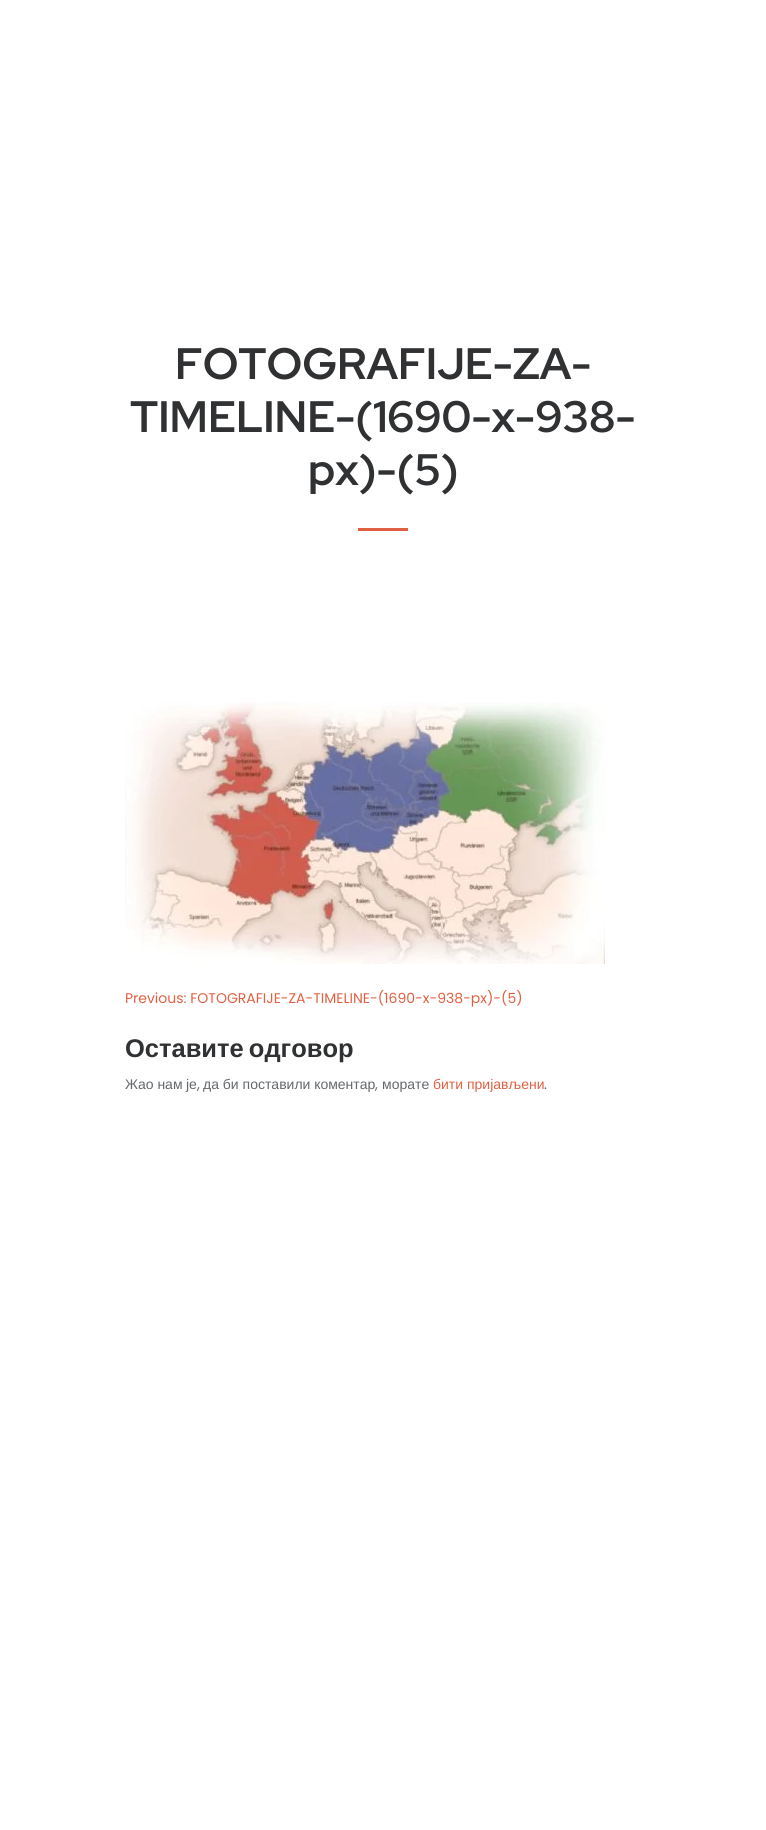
#include <cairo/cairo.h>
#include <math.h>
#include <stddef.h>


static void draw_spaced(cairo_t *cr, double x, double y, const char *s, double letter, double word) {
  cairo_move_to(cr, x, y);
  while (*s) {
    char ch[5] = {0};
    int n = 0;
    do ch[n++] = *s++; while ((*s & 0xC0) == 0x80);
    cairo_show_text(cr, ch);
    cairo_rel_move_to(cr, letter + word * (*ch == ' '), 0);
  }
}

static void draw_image(cairo_t *cr, const char *path, double x, double y, double w, double h) {
  cairo_surface_t *image = cairo_image_surface_create_from_png(path);
  cairo_save(cr);
  cairo_set_source_surface(cr, image, x, y);
  cairo_rectangle(cr, x, y, w, h);
  cairo_fill(cr);
  cairo_restore(cr);
  cairo_surface_destroy(image);
}

static void draw(cairo_t *cr) {
  cairo_set_source_rgb(cr, 1, 1, 1);
  cairo_paint(cr);
  cairo_set_source_rgb(cr, 226 / 255.0, 96 / 255.0, 66 / 255.0);
  cairo_rectangle(cr, 358, 528, 50, 3);
  cairo_fill(cr);
  draw_image(cr, "images/1.png", 125, 702, 480, 262);
  cairo_select_font_face(cr, "Red Hat Display", CAIRO_FONT_SLANT_NORMAL, CAIRO_FONT_WEIGHT_BOLD);
  cairo_set_font_size(cr, 44);
  cairo_set_source_rgb(cr, 48 / 255.0, 49 / 255.0, 51 / 255.0);
  cairo_move_to(cr, 175, 379);
  cairo_show_text(cr, "FOTOGRAFIJE-ZA-");
  cairo_move_to(cr, 130, 432);
  cairo_show_text(cr, "TIMELINE-(1690-x-938-");
  cairo_move_to(cr, 308, 485);
  cairo_show_text(cr, "px)-(5)");
  cairo_select_font_face(cr, "Poppins", CAIRO_FONT_SLANT_NORMAL, CAIRO_FONT_WEIGHT_NORMAL);
  cairo_set_font_size(cr, 14);
  cairo_set_source_rgb(cr, 226 / 255.0, 96 / 255.0, 66 / 255.0);
  cairo_move_to(cr, 125, 1003);
  cairo_show_text(cr, "Previous: FOTOGRAFIJE-ZA-TIMELINE-(1690-x-938-px)-(5)");
  cairo_select_font_face(cr, "Liberation Sans", CAIRO_FONT_SLANT_NORMAL, CAIRO_FONT_WEIGHT_BOLD);
  cairo_set_font_size(cr, 25.5);
  cairo_set_source_rgb(cr, 48 / 255.0, 49 / 255.0, 51 / 255.0);
  draw_spaced(cr, 125, 1057, "Оставите одговор", 0, -2);
  cairo_select_font_face(cr, "Liberation Sans", CAIRO_FONT_SLANT_NORMAL, CAIRO_FONT_WEIGHT_NORMAL);
  cairo_set_font_size(cr, 14);
  cairo_set_source_rgb(cr, 100 / 255.0, 105 / 255.0, 109 / 255.0);
  cairo_move_to(cr, 125, 1089);
  cairo_show_text(cr, "Жао нам");
  cairo_move_to(cr, 186, 1089);
  cairo_show_text(cr, "је");
  cairo_select_font_face(cr, "Poppins", CAIRO_FONT_SLANT_NORMAL, CAIRO_FONT_WEIGHT_NORMAL);
  cairo_move_to(cr, 197, 1089);
  cairo_show_text(cr, ",");
  cairo_select_font_face(cr, "Liberation Sans", CAIRO_FONT_SLANT_NORMAL, CAIRO_FONT_WEIGHT_NORMAL);
  cairo_move_to(cr, 203, 1089);
  cairo_show_text(cr, "да би поставили коментар");
  cairo_select_font_face(cr, "Poppins", CAIRO_FONT_SLANT_NORMAL, CAIRO_FONT_WEIGHT_NORMAL);
  cairo_move_to(cr, 375, 1089);
  cairo_show_text(cr, ",");
  cairo_select_font_face(cr, "Liberation Sans", CAIRO_FONT_SLANT_NORMAL, CAIRO_FONT_WEIGHT_NORMAL);
  cairo_move_to(cr, 382, 1089);
  cairo_show_text(cr, "морате");
  cairo_set_source_rgb(cr, 226 / 255.0, 96 / 255.0, 66 / 255.0);
  cairo_move_to(cr, 433, 1089);
  cairo_show_text(cr, "бити пријављени");
  cairo_select_font_face(cr, "Poppins", CAIRO_FONT_SLANT_NORMAL, CAIRO_FONT_WEIGHT_NORMAL);
  cairo_set_source_rgb(cr, 100 / 255.0, 105 / 255.0, 109 / 255.0);
  cairo_move_to(cr, 544, 1089);
  cairo_show_text(cr, ".");
}

int main(void) {
  cairo_surface_t *surface = cairo_image_surface_create(CAIRO_FORMAT_RGB24, 766, 1830);
  cairo_t *cr = cairo_create(surface);
  cairo_font_options_t *options = cairo_font_options_create();
  cairo_font_options_set_hint_metrics(options, CAIRO_HINT_METRICS_OFF);
  cairo_font_options_set_hint_style(options, CAIRO_HINT_STYLE_NONE);
  cairo_set_font_options(cr, options);
  cairo_set_miter_limit(cr, 4);
  draw(cr);
  cairo_surface_write_to_png(surface, "out.png");
  cairo_font_options_destroy(options);
  cairo_destroy(cr);
  cairo_surface_destroy(surface);
  return 0;
}
